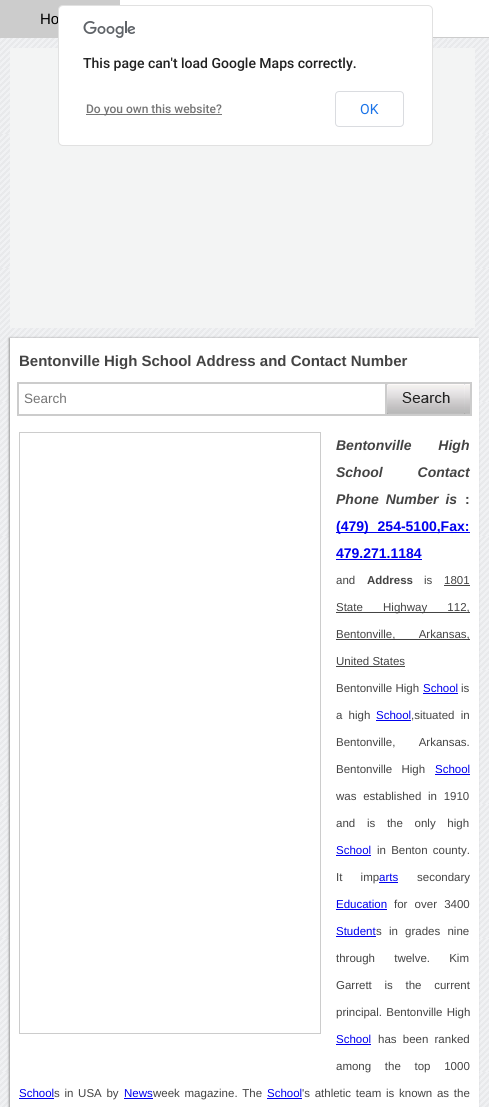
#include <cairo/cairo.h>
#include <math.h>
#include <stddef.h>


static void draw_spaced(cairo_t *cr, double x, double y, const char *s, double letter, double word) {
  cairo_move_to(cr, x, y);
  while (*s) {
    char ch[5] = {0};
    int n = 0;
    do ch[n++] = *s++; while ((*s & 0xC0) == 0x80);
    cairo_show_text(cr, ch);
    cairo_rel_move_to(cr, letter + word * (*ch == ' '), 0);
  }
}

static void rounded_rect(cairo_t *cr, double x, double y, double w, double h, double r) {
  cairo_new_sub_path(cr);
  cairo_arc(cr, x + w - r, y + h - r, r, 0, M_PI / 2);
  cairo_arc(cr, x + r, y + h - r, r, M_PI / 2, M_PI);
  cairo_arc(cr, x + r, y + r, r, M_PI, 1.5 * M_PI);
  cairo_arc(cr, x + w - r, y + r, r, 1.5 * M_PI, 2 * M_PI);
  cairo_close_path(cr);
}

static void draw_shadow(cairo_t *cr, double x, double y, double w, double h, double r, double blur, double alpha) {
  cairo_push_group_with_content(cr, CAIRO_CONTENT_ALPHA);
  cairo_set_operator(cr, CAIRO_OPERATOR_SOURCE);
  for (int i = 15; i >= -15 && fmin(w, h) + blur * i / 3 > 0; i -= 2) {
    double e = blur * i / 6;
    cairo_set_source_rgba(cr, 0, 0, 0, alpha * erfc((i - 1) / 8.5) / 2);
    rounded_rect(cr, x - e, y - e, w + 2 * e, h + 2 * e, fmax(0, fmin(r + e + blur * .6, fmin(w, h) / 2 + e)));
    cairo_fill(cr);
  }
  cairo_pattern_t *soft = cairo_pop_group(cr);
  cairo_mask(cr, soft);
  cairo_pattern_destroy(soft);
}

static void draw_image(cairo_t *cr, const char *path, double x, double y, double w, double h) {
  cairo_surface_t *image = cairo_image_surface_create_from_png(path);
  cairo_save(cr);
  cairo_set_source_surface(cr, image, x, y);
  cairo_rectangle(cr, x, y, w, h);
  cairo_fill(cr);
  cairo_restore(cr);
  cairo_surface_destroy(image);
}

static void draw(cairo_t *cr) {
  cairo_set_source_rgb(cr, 1, 1, 1);
  cairo_paint(cr);
  draw_image(cr, "images/1.png", 0, 38, 489, 1069);
  cairo_set_source_rgb(cr, 204 / 255.0, 204 / 255.0, 204 / 255.0);
  cairo_rectangle(cr, 0, 37, 489, 1);
  cairo_fill(cr);
  cairo_rectangle(cr, 0, 0, 120, 37);
  cairo_fill(cr);
  cairo_set_source_rgb(cr, 243 / 255.0, 244 / 255.0, 244 / 255.0);
  cairo_rectangle(cr, 10, 48, 465, 280);
  cairo_fill(cr);
  cairo_set_source_rgb(cr, 153 / 255.0, 153 / 255.0, 153 / 255.0);
  draw_shadow(cr, 9, 338, 469, 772, 0, 1, 1);
  cairo_set_source_rgb(cr, 1, 1, 1);
  cairo_rectangle(cr, 10, 338, 469, 769);
  cairo_fill(cr);
  cairo_rectangle(cr, 18, 383, 368, 32);
  cairo_set_source_rgb(cr, 204 / 255.0, 204 / 255.0, 204 / 255.0);
  cairo_stroke(cr);
  cairo_rectangle(cr, 386, 383, 85, 32);
  cairo_stroke(cr);
  draw_image(cr, "images/3.png", 387, 384, 83, 30);
  cairo_rectangle(cr, 19.5, 432.5, 301, 601);
  cairo_set_line_width(cr, 1);
  cairo_stroke(cr);
  cairo_set_source_rgb(cr, 0, 0, 238 / 255.0);
  cairo_rectangle(cr, 336, 532, 134, 1);
  cairo_fill(cr);
  cairo_rectangle(cr, 336, 559, 86, 1);
  cairo_fill(cr);
  cairo_set_source_rgb(cr, 68 / 255.0, 68 / 255.0, 68 / 255.0);
  cairo_rectangle(cr, 444, 585, 26, 1);
  cairo_fill(cr);
  cairo_rectangle(cr, 336, 612, 134, 1);
  cairo_fill(cr);
  cairo_rectangle(cr, 336, 639, 134, 1);
  cairo_fill(cr);
  cairo_rectangle(cr, 336, 666, 69, 1);
  cairo_fill(cr);
  cairo_set_source_rgb(cr, 0, 0, 238 / 255.0);
  cairo_rectangle(cr, 423, 693, 35, 1);
  cairo_fill(cr);
  cairo_rectangle(cr, 376, 720, 35, 1);
  cairo_fill(cr);
  cairo_rectangle(cr, 435, 774, 35, 1);
  cairo_fill(cr);
  cairo_rectangle(cr, 336, 855, 35, 1);
  cairo_fill(cr);
  cairo_rectangle(cr, 379, 882, 19, 1);
  cairo_fill(cr);
  cairo_rectangle(cr, 336, 909, 51, 1);
  cairo_fill(cr);
  cairo_rectangle(cr, 336, 936, 40, 1);
  cairo_fill(cr);
  cairo_rectangle(cr, 336, 1044, 35, 1);
  cairo_fill(cr);
  cairo_rectangle(cr, 19, 1098, 35, 1);
  cairo_fill(cr);
  cairo_rectangle(cr, 124, 1098, 29, 1);
  cairo_fill(cr);
  cairo_rectangle(cr, 267, 1098, 35, 1);
  cairo_fill(cr);
  cairo_select_font_face(cr, "Liberation Sans", CAIRO_FONT_SLANT_NORMAL, CAIRO_FONT_WEIGHT_NORMAL);
  cairo_set_font_size(cr, 15);
  cairo_set_source_rgb(cr, 0, 0, 0);
  cairo_move_to(cr, 40, 24);
  cairo_show_text(cr, "Ho");
  cairo_set_source_rgb(cr, 1, 1, 1);
  rounded_rect(cr, 58, 5, 375, 141, 5);
  cairo_fill(cr);
  rounded_rect(cr, 58.5, 5.5, 374, 140, 4.5);
  cairo_set_source_rgba(cr, 0, 0, 0, 0.12);
  cairo_stroke(cr);
  draw_image(cr, "images/2.png", 83, 21, 52, 17);
  cairo_select_font_face(cr, "Roboto Medium", CAIRO_FONT_SLANT_NORMAL, CAIRO_FONT_WEIGHT_NORMAL);
  cairo_set_font_size(cr, 14);
  cairo_set_source_rgb(cr, 33 / 255.0, 33 / 255.0, 33 / 255.0);
  cairo_move_to(cr, 83, 68);
  cairo_show_text(cr, "This page can't load Google Maps correctly.");
  cairo_set_source_rgb(cr, 117 / 255.0, 117 / 255.0, 117 / 255.0);
  cairo_rectangle(cr, 86, 114, 136, 1);
  cairo_fill(cr);
  cairo_set_font_size(cr, 12);
  cairo_move_to(cr, 86, 113);
  cairo_show_text(cr, "Do you own this website?");
  rounded_rect(cr, 335.5, 91.5, 68, 35, 3.5);
  cairo_set_source_rgb(cr, 218 / 255.0, 220 / 255.0, 224 / 255.0);
  cairo_stroke(cr);
  cairo_select_font_face(cr, "Roboto", CAIRO_FONT_SLANT_NORMAL, CAIRO_FONT_WEIGHT_NORMAL);
  cairo_set_font_size(cr, 14);
  cairo_set_source_rgb(cr, 26 / 255.0, 115 / 255.0, 232 / 255.0);
  cairo_move_to(cr, 360, 114);
  cairo_show_text(cr, "OK");
  cairo_select_font_face(cr, "Liberation Sans", CAIRO_FONT_SLANT_NORMAL, CAIRO_FONT_WEIGHT_BOLD);
  cairo_set_font_size(cr, 15);
  cairo_set_source_rgb(cr, 68 / 255.0, 68 / 255.0, 68 / 255.0);
  cairo_move_to(cr, 19, 366);
  cairo_show_text(cr, "Bentonville High School Address and Contact Number");
  cairo_select_font_face(cr, "Liberation Sans", CAIRO_FONT_SLANT_NORMAL, CAIRO_FONT_WEIGHT_NORMAL);
  cairo_set_font_size(cr, 13.5);
  cairo_set_source_rgb(cr, 117 / 255.0, 117 / 255.0, 117 / 255.0);
  cairo_move_to(cr, 24, 403);
  cairo_show_text(cr, "Search");
  cairo_select_font_face(cr, "Liberation Sans", CAIRO_FONT_SLANT_ITALIC, CAIRO_FONT_WEIGHT_BOLD);
  cairo_set_font_size(cr, 14);
  cairo_set_source_rgb(cr, 68 / 255.0, 68 / 255.0, 68 / 255.0);
  draw_spaced(cr, 336, 450, "Bentonville High", 0, 23);
  draw_spaced(cr, 336, 477, "School Contact", 0, 31);
  draw_spaced(cr, 336, 504, "Phone Number is", 0, 3);
  cairo_select_font_face(cr, "Liberation Sans", CAIRO_FONT_SLANT_NORMAL, CAIRO_FONT_WEIGHT_BOLD);
  cairo_move_to(cr, 465, 504);
  cairo_show_text(cr, ":");
  cairo_set_source_rgb(cr, 0, 0, 238 / 255.0);
  draw_spaced(cr, 336, 531, "(479) 254-5100,Fax:", 0, 5);
  cairo_move_to(cr, 336, 558);
  cairo_show_text(cr, "479.271.1184");
  cairo_select_font_face(cr, "Liberation Sans", CAIRO_FONT_SLANT_NORMAL, CAIRO_FONT_WEIGHT_NORMAL);
  cairo_set_font_size(cr, 11.5);
  cairo_set_source_rgb(cr, 68 / 255.0, 68 / 255.0, 68 / 255.0);
  cairo_move_to(cr, 336, 584);
  cairo_show_text(cr, "and");
  cairo_select_font_face(cr, "Liberation Sans", CAIRO_FONT_SLANT_NORMAL, CAIRO_FONT_WEIGHT_BOLD);
  cairo_move_to(cr, 367, 584);
  cairo_show_text(cr, "Address");
  cairo_select_font_face(cr, "Liberation Sans", CAIRO_FONT_SLANT_NORMAL, CAIRO_FONT_WEIGHT_NORMAL);
  cairo_move_to(cr, 424, 584);
  cairo_show_text(cr, "is");
  cairo_move_to(cr, 444, 584);
  cairo_show_text(cr, "1801");
  draw_spaced(cr, 336, 611, "State Highway 112,", 0, 17);
  draw_spaced(cr, 336, 638, "Bentonville, Arkansas,", 0, 20);
  cairo_move_to(cr, 336, 665);
  cairo_show_text(cr, "United States");
  cairo_move_to(cr, 336, 692);
  cairo_show_text(cr, "Bentonville High");
  cairo_set_source_rgb(cr, 0, 0, 238 / 255.0);
  cairo_move_to(cr, 423, 692);
  cairo_show_text(cr, "School");
  cairo_set_source_rgb(cr, 68 / 255.0, 68 / 255.0, 68 / 255.0);
  cairo_move_to(cr, 461, 692);
  cairo_show_text(cr, "is");
  draw_spaced(cr, 336, 719, "a high", 0, 3);
  cairo_set_source_rgb(cr, 0, 0, 238 / 255.0);
  cairo_move_to(cr, 376, 719);
  cairo_show_text(cr, "School");
  cairo_set_source_rgb(cr, 68 / 255.0, 68 / 255.0, 68 / 255.0);
  draw_spaced(cr, 411, 719, ",situated in", 0, 3);
  draw_spaced(cr, 336, 746, "Bentonville, Arkansas.", 0, 20);
  draw_spaced(cr, 336, 773, "Bentonville High", 0, 6);
  cairo_set_source_rgb(cr, 0, 0, 238 / 255.0);
  cairo_move_to(cr, 435, 773);
  cairo_show_text(cr, "School");
  cairo_set_source_rgb(cr, 68 / 255.0, 68 / 255.0, 68 / 255.0);
  draw_spaced(cr, 336, 800, "was established in 1910", 0, 3.5);
  draw_spaced(cr, 336, 827, "and is the only high", 0, 8.5);
  cairo_set_source_rgb(cr, 0, 0, 238 / 255.0);
  cairo_move_to(cr, 336, 854);
  cairo_show_text(cr, "School");
  cairo_set_source_rgb(cr, 68 / 255.0, 68 / 255.0, 68 / 255.0);
  draw_spaced(cr, 377, 854, "in Benton county.", 0, 2);
  draw_spaced(cr, 336, 881, "It imp", 0, 15);
  cairo_set_source_rgb(cr, 0, 0, 238 / 255.0);
  cairo_move_to(cr, 379, 881);
  cairo_show_text(cr, "arts");
  cairo_set_source_rgb(cr, 68 / 255.0, 68 / 255.0, 68 / 255.0);
  cairo_move_to(cr, 417, 881);
  cairo_show_text(cr, "secondary");
  cairo_set_source_rgb(cr, 0, 0, 238 / 255.0);
  cairo_move_to(cr, 336, 908);
  cairo_show_text(cr, "Education");
  cairo_set_source_rgb(cr, 68 / 255.0, 68 / 255.0, 68 / 255.0);
  draw_spaced(cr, 394, 908, "for over 3400", 0, 4);
  cairo_set_source_rgb(cr, 0, 0, 238 / 255.0);
  cairo_move_to(cr, 336, 935);
  cairo_show_text(cr, "Student");
  cairo_set_source_rgb(cr, 68 / 255.0, 68 / 255.0, 68 / 255.0);
  draw_spaced(cr, 376, 935, "s in grades nine", 0, 4);
  draw_spaced(cr, 336, 962, "through twelve. Kim", 0, 16);
  draw_spaced(cr, 336, 989, "Garrett is the current", 0, 9.5);
  draw_spaced(cr, 336, 1016, "principal. Bentonville High", 0, 1);
  cairo_set_source_rgb(cr, 0, 0, 238 / 255.0);
  cairo_move_to(cr, 336, 1043);
  cairo_show_text(cr, "School");
  cairo_set_source_rgb(cr, 68 / 255.0, 68 / 255.0, 68 / 255.0);
  draw_spaced(cr, 378, 1043, "has been ranked", 0, 3);
  draw_spaced(cr, 336, 1070, "among the top 1000", 0, 10.5);
  cairo_set_source_rgb(cr, 0, 0, 238 / 255.0);
  cairo_move_to(cr, 19, 1097);
  cairo_show_text(cr, "School");
  cairo_set_source_rgb(cr, 68 / 255.0, 68 / 255.0, 68 / 255.0);
  draw_spaced(cr, 54, 1097, "s in USA by", 0, 1.5);
  cairo_set_source_rgb(cr, 0, 0, 238 / 255.0);
  cairo_move_to(cr, 124, 1097);
  cairo_show_text(cr, "News");
  cairo_set_source_rgb(cr, 68 / 255.0, 68 / 255.0, 68 / 255.0);
  draw_spaced(cr, 153, 1097, "week magazine. The", 0, 1.5);
  cairo_set_source_rgb(cr, 0, 0, 238 / 255.0);
  cairo_move_to(cr, 267, 1097);
  cairo_show_text(cr, "School");
  cairo_set_source_rgb(cr, 68 / 255.0, 68 / 255.0, 68 / 255.0);
  draw_spaced(cr, 302, 1097, "'s athletic team is known as the", 0, 1.5);
}

int main(void) {
  cairo_surface_t *surface = cairo_image_surface_create(CAIRO_FORMAT_RGB24, 489, 1107);
  cairo_t *cr = cairo_create(surface);
  cairo_font_options_t *options = cairo_font_options_create();
  cairo_font_options_set_hint_metrics(options, CAIRO_HINT_METRICS_OFF);
  cairo_font_options_set_hint_style(options, CAIRO_HINT_STYLE_NONE);
  cairo_set_font_options(cr, options);
  cairo_set_miter_limit(cr, 4);
  draw(cr);
  cairo_surface_write_to_png(surface, "out.png");
  cairo_font_options_destroy(options);
  cairo_destroy(cr);
  cairo_surface_destroy(surface);
  return 0;
}
